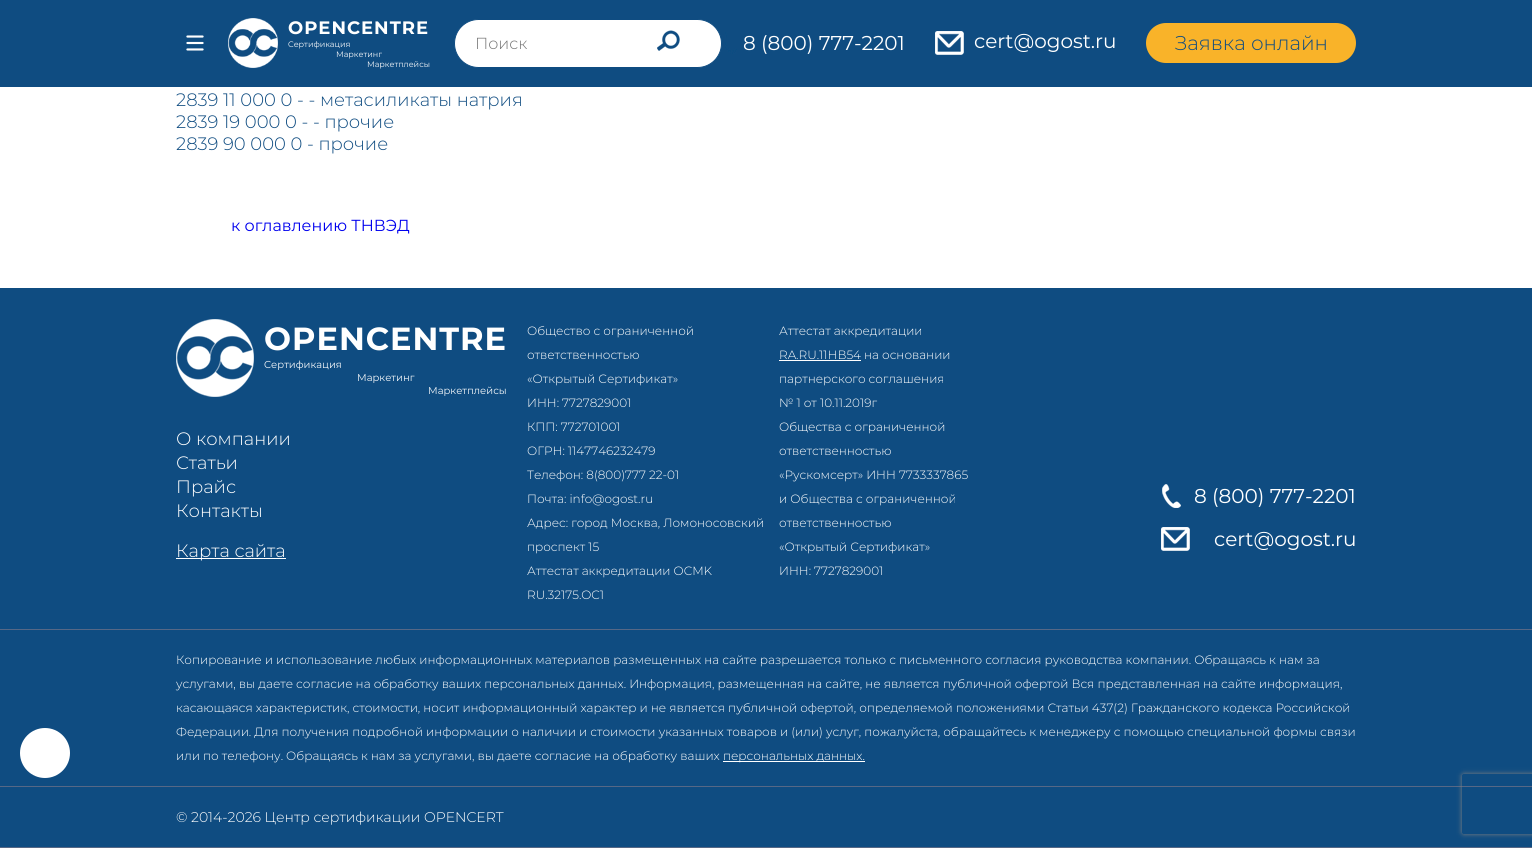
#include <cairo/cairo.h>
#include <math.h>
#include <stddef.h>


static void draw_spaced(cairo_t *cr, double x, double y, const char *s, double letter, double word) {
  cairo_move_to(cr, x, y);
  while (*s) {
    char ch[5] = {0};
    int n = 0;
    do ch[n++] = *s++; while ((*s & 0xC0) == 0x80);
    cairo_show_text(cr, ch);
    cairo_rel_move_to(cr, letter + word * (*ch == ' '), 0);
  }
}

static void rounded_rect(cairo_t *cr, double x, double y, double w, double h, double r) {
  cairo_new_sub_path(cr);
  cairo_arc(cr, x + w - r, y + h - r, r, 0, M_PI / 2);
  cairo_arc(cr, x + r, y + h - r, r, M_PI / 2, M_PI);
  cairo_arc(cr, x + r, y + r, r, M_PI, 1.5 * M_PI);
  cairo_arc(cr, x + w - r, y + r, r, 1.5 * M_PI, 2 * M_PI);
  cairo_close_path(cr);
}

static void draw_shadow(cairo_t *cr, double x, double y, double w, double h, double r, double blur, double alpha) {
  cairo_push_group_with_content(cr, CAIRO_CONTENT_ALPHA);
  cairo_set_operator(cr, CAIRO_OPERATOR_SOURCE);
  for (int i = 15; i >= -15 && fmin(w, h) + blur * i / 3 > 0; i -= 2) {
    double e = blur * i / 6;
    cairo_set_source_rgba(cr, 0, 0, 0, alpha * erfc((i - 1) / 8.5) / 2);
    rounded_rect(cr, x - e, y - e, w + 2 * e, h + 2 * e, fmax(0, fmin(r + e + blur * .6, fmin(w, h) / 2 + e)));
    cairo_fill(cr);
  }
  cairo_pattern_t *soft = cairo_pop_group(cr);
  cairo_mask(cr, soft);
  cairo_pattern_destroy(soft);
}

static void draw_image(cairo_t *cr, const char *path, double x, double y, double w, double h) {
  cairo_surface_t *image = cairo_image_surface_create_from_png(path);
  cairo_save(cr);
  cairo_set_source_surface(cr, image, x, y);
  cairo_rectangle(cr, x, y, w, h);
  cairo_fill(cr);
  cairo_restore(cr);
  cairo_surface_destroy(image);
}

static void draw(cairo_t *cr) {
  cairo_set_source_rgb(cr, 1, 1, 1);
  cairo_paint(cr);
  cairo_set_source_rgb(cr, 15 / 255.0, 76 / 255.0, 129 / 255.0);
  cairo_rectangle(cr, 0, 0, 1532, 87);
  cairo_fill(cr);
  draw_image(cr, "images/1.png", 186, 35, 18, 16);
  draw_image(cr, "images/2.png", 228, 18, 50, 50);
  cairo_set_source_rgb(cr, 1, 1, 1);
  rounded_rect(cr, 454.5, 19.5, 267, 48, 24);
  cairo_fill_preserve(cr);
  cairo_set_source_rgb(cr, 15 / 255.0, 76 / 255.0, 129 / 255.0);
  cairo_set_line_width(cr, 1);
  cairo_stroke(cr);
  draw_image(cr, "images/3.png", 657, 30, 23, 21);
  draw_image(cr, "images/4.png", 725, 32, 12, 22);
  draw_image(cr, "images/5.png", 935, 31, 29, 24);
  cairo_set_source_rgb(cr, 249 / 255.0, 179 / 255.0, 41 / 255.0);
  rounded_rect(cr, 1146, 23, 210, 40, 20);
  cairo_fill(cr);
  cairo_set_source_rgb(cr, 15 / 255.0, 76 / 255.0, 129 / 255.0);
  cairo_rectangle(cr, 0, 288, 1532, 559);
  cairo_fill(cr);
  cairo_set_source_rgb(cr, 1, 1, 1);
  cairo_arc(cr, 45, 753, 25, 0, 2 * M_PI);
  cairo_fill(cr);
  cairo_set_source_rgb(cr, 86 / 255.0, 104 / 255.0, 134 / 255.0);
  cairo_rectangle(cr, 0, 629, 1532, 1);
  cairo_fill(cr);
  draw_image(cr, "images/6.png", 176, 319, 78, 78);
  cairo_set_source_rgb(cr, 1, 1, 1);
  cairo_rectangle(cr, 176, 558, 110, 1);
  cairo_fill(cr);
  cairo_rectangle(cr, 779, 360, 82, 1);
  cairo_fill(cr);
  draw_image(cr, "images/7.png", 1162, 484, 19, 24);
  draw_image(cr, "images/5.png", 1161, 527, 29, 24);
  cairo_set_source_rgb(cr, 86 / 255.0, 104 / 255.0, 134 / 255.0);
  cairo_rectangle(cr, 0, 786, 1532, 1);
  cairo_fill(cr);
  cairo_set_source_rgb(cr, 1, 1, 1);
  cairo_rectangle(cr, 723, 761, 142, 1);
  cairo_fill(cr);
  cairo_set_source_rgb(cr, 86 / 255.0, 104 / 255.0, 134 / 255.0);
  cairo_rectangle(cr, 0, 847, 1532, 1);
  cairo_fill(cr);
  cairo_save(cr);
  cairo_set_fill_rule(cr, CAIRO_FILL_RULE_EVEN_ODD);
  cairo_new_path(cr);
  cairo_move_to(cr, 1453, 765);
  cairo_line_to(cr, 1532, 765);
  cairo_line_to(cr, 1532, 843);
  cairo_line_to(cr, 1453, 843);
  cairo_close_path(cr);
  cairo_move_to(cr, 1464, 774);
  cairo_line_to(cr, 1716, 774);
  cairo_curve_to(cr, 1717, 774, 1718, 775, 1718, 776);
  cairo_line_to(cr, 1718, 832);
  cairo_curve_to(cr, 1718, 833, 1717, 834, 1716, 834);
  cairo_line_to(cr, 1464, 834);
  cairo_curve_to(cr, 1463, 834, 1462, 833, 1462, 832);
  cairo_line_to(cr, 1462, 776);
  cairo_curve_to(cr, 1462, 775, 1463, 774, 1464, 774);
  cairo_close_path(cr);
  cairo_clip(cr);
  cairo_set_source_rgb(cr, 128 / 255.0, 128 / 255.0, 128 / 255.0);
  draw_shadow(cr, 1462, 774, 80, 60, 2, 2.5, 1);
  cairo_restore(cr);
  cairo_select_font_face(cr, "Montserrat", CAIRO_FONT_SLANT_NORMAL, CAIRO_FONT_WEIGHT_BOLD);
  cairo_set_font_size(cr, 18);
  cairo_set_source_rgb(cr, 1, 1, 1);
  draw_spaced(cr, 288, 34, "OPENCENTRE", 1, 0);
  cairo_select_font_face(cr, "Montserrat", CAIRO_FONT_SLANT_NORMAL, CAIRO_FONT_WEIGHT_NORMAL);
  cairo_set_font_size(cr, 8);
  cairo_set_source_rgb(cr, 243 / 255.0, 246 / 255.0, 249 / 255.0);
  cairo_move_to(cr, 288, 47);
  cairo_show_text(cr, "Cертификация");
  cairo_move_to(cr, 336, 57);
  cairo_show_text(cr, "Маркетинг");
  cairo_move_to(cr, 367, 67);
  cairo_show_text(cr, "Маркетплейсы");
  cairo_select_font_face(cr, "Montserrat Light", CAIRO_FONT_SLANT_NORMAL, CAIRO_FONT_WEIGHT_NORMAL);
  cairo_set_font_size(cr, 16);
  cairo_set_source_rgb(cr, 117 / 255.0, 117 / 255.0, 117 / 255.0);
  cairo_move_to(cr, 475, 49);
  cairo_show_text(cr, "Поиск");
  cairo_select_font_face(cr, "Montserrat", CAIRO_FONT_SLANT_NORMAL, CAIRO_FONT_WEIGHT_NORMAL);
  cairo_set_font_size(cr, 20);
  cairo_set_source_rgb(cr, 1, 1, 1);
  cairo_move_to(cr, 743, 50);
  cairo_show_text(cr, "8 (800) 777-2201");
  cairo_move_to(cr, 974, 48);
  cairo_show_text(cr, "cert@ogost.ru");
  cairo_select_font_face(cr, "Montserrat Light", CAIRO_FONT_SLANT_NORMAL, CAIRO_FONT_WEIGHT_NORMAL);
  cairo_set_source_rgb(cr, 15 / 255.0, 76 / 255.0, 129 / 255.0);
  cairo_move_to(cr, 1175, 50);
  cairo_show_text(cr, "Заявка онлайн");
  cairo_set_font_size(cr, 18);
  cairo_move_to(cr, 176, 106);
  cairo_show_text(cr, "2839 11 000 0 - - метасиликаты натрия");
  cairo_move_to(cr, 176, 128);
  cairo_show_text(cr, "2839 19 000 0 - - прочие");
  cairo_move_to(cr, 176, 150);
  cairo_show_text(cr, "2839 90 000 0 - прочие");
  cairo_select_font_face(cr, "Montserrat", CAIRO_FONT_SLANT_NORMAL, CAIRO_FONT_WEIGHT_NORMAL);
  cairo_set_font_size(cr, 16);
  cairo_set_source_rgb(cr, 0, 0, 238 / 255.0);
  cairo_move_to(cr, 231, 231);
  cairo_show_text(cr, "к оглавлению ТНВЭД");
  cairo_select_font_face(cr, "Montserrat", CAIRO_FONT_SLANT_NORMAL, CAIRO_FONT_WEIGHT_BOLD);
  cairo_set_font_size(cr, 32);
  cairo_set_source_rgb(cr, 1, 1, 1);
  draw_spaced(cr, 264, 350, "OPENCENTRE", 1, 0);
  cairo_select_font_face(cr, "Montserrat", CAIRO_FONT_SLANT_NORMAL, CAIRO_FONT_WEIGHT_NORMAL);
  cairo_set_font_size(cr, 10);
  cairo_set_source_rgb(cr, 243 / 255.0, 246 / 255.0, 249 / 255.0);
  cairo_move_to(cr, 264, 368);
  cairo_show_text(cr, "Cертификация");
  cairo_move_to(cr, 357, 381);
  cairo_show_text(cr, "Маркетинг");
  cairo_move_to(cr, 428, 394);
  cairo_show_text(cr, "Маркетплейсы");
  cairo_select_font_face(cr, "Montserrat Light", CAIRO_FONT_SLANT_NORMAL, CAIRO_FONT_WEIGHT_NORMAL);
  cairo_set_font_size(cr, 18);
  cairo_set_source_rgb(cr, 1, 1, 1);
  cairo_move_to(cr, 176, 445);
  cairo_show_text(cr, "О компании");
  cairo_move_to(cr, 176, 469);
  cairo_show_text(cr, "Статьи");
  cairo_move_to(cr, 176, 493);
  cairo_show_text(cr, "Прайс");
  cairo_move_to(cr, 176, 517);
  cairo_show_text(cr, "Контакты");
  cairo_move_to(cr, 176, 557);
  cairo_show_text(cr, "Карта сайта");
  cairo_set_font_size(cr, 12);
  cairo_move_to(cr, 527, 335);
  cairo_show_text(cr, "Общество с ограниченной");
  cairo_move_to(cr, 527, 359);
  cairo_show_text(cr, "ответственностью");
  cairo_move_to(cr, 527, 383);
  cairo_show_text(cr, "«Открытый Сертификат»");
  cairo_move_to(cr, 527, 407);
  cairo_show_text(cr, "ИНН: 7727829001");
  cairo_move_to(cr, 527, 431);
  cairo_show_text(cr, "КПП: 772701001");
  cairo_move_to(cr, 527, 455);
  cairo_show_text(cr, "ОГРН: 1147746232479");
  cairo_move_to(cr, 527, 479);
  cairo_show_text(cr, "Телефон: 8(800)777 22-01");
  cairo_move_to(cr, 527, 503);
  cairo_show_text(cr, "Почта: info@ogost.ru");
  cairo_move_to(cr, 527, 527);
  cairo_show_text(cr, "Адрес: город Москва, Ломоносовский");
  cairo_move_to(cr, 527, 551);
  cairo_show_text(cr, "проспект 15");
  cairo_move_to(cr, 527, 575);
  cairo_show_text(cr, "Аттестат аккредитации OCMK");
  cairo_move_to(cr, 527, 599);
  cairo_show_text(cr, "RU.32175.OC1");
  cairo_move_to(cr, 779, 335);
  cairo_show_text(cr, "Аттестат аккредитации");
  cairo_move_to(cr, 779, 359);
  cairo_show_text(cr, "RA.RU.11НВ54 на основании");
  cairo_move_to(cr, 779, 383);
  cairo_show_text(cr, "партнерского соглашения");
  cairo_move_to(cr, 779, 407);
  cairo_show_text(cr, "№ 1 от 10.11.2019г");
  cairo_move_to(cr, 779, 431);
  cairo_show_text(cr, "Общества с ограниченной");
  cairo_move_to(cr, 779, 455);
  cairo_show_text(cr, "ответственностью");
  cairo_move_to(cr, 779, 479);
  cairo_show_text(cr, "«Рускомсерт» ИНН 7733337865");
  cairo_move_to(cr, 779, 503);
  cairo_show_text(cr, "и Общества с ограниченной");
  cairo_move_to(cr, 779, 527);
  cairo_show_text(cr, "ответственностью");
  cairo_move_to(cr, 779, 551);
  cairo_show_text(cr, "«Открытый Сертификат»");
  cairo_move_to(cr, 779, 575);
  cairo_show_text(cr, "ИНН: 7727829001");
  cairo_select_font_face(cr, "Montserrat", CAIRO_FONT_SLANT_NORMAL, CAIRO_FONT_WEIGHT_NORMAL);
  cairo_set_font_size(cr, 20);
  cairo_move_to(cr, 1194, 503);
  cairo_show_text(cr, "8 (800) 777-2201");
  cairo_move_to(cr, 1214, 546);
  cairo_show_text(cr, "cert@ogost.ru");
  cairo_select_font_face(cr, "Montserrat Light", CAIRO_FONT_SLANT_NORMAL, CAIRO_FONT_WEIGHT_NORMAL);
  cairo_set_font_size(cr, 12);
  cairo_move_to(cr, 176, 664);
  cairo_show_text(cr, "Копирование и использование любых информационных материалов размещенных на сайте разрешается только с письменного согласия руководства компании. Обращаясь к нам за");
  cairo_move_to(cr, 176, 688);
  cairo_show_text(cr, "услугами, вы даете согласие на обработку ваших персональных данных. Информация, размещенная на сайте, не является публичной офертой Вся представленная на сайте информация,");
  cairo_move_to(cr, 176, 712);
  cairo_show_text(cr, "касающаяся характеристик, стоимости, носит информационный характер и не является публичной офертой, определяемой положениями Статьи 437(2) Гражданского кодекса Российской");
  cairo_move_to(cr, 176, 736);
  cairo_show_text(cr, "Федерации. Для получения подробной информации о наличии и стоимости указанных товаров и (или) услуг, пожалуйста, обращайтесь к менеджеру с помощью специальной формы связи");
  cairo_move_to(cr, 176, 760);
  cairo_show_text(cr, "или по телефону. Обращаясь к нам за услугами, вы даете согласие на обработку ваших");
  cairo_move_to(cr, 723, 760);
  cairo_show_text(cr, "персональных данных.");
  cairo_set_font_size(cr, 14);
  cairo_move_to(cr, 176, 822);
  cairo_show_text(cr, "© 2014-2026 Центр сертификации OPENCERT");
}

int main(void) {
  cairo_surface_t *surface = cairo_image_surface_create(CAIRO_FORMAT_RGB24, 1532, 848);
  cairo_t *cr = cairo_create(surface);
  cairo_font_options_t *options = cairo_font_options_create();
  cairo_font_options_set_hint_metrics(options, CAIRO_HINT_METRICS_OFF);
  cairo_font_options_set_hint_style(options, CAIRO_HINT_STYLE_NONE);
  cairo_set_font_options(cr, options);
  cairo_set_miter_limit(cr, 4);
  draw(cr);
  cairo_surface_write_to_png(surface, "out.png");
  cairo_font_options_destroy(options);
  cairo_destroy(cr);
  cairo_surface_destroy(surface);
  return 0;
}
